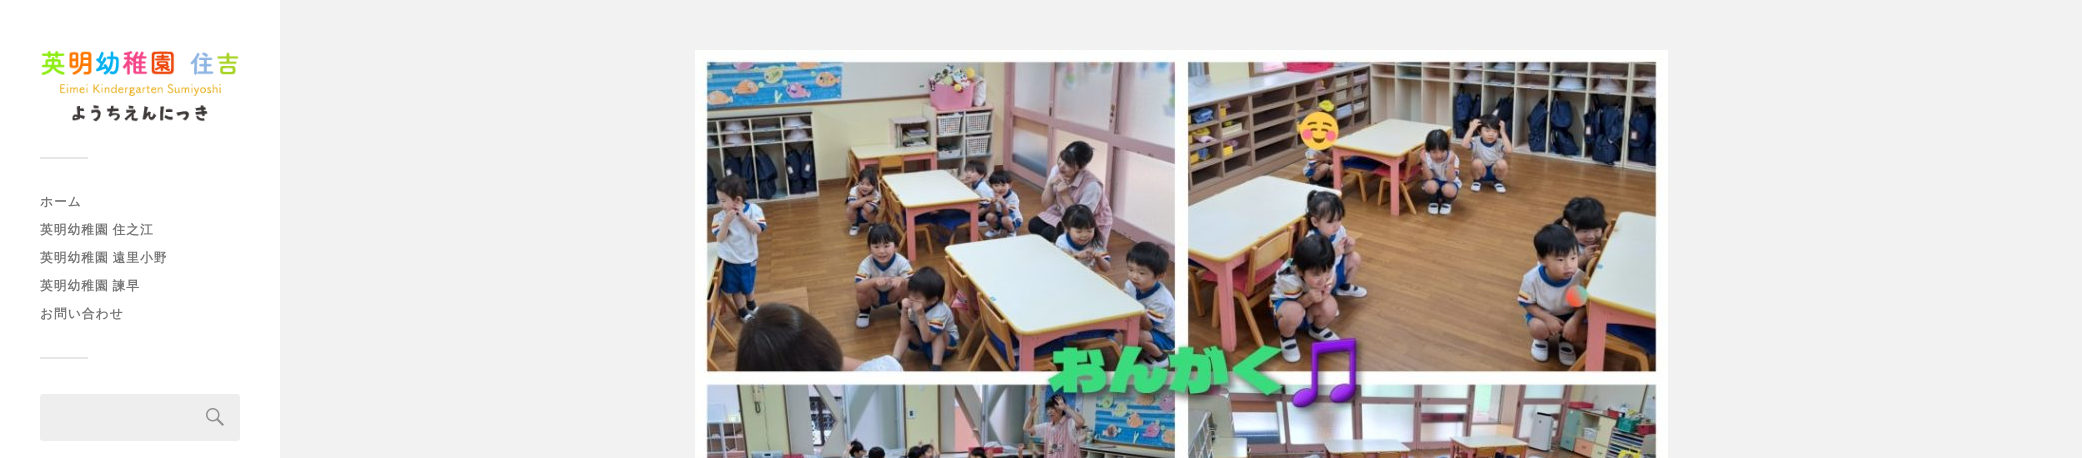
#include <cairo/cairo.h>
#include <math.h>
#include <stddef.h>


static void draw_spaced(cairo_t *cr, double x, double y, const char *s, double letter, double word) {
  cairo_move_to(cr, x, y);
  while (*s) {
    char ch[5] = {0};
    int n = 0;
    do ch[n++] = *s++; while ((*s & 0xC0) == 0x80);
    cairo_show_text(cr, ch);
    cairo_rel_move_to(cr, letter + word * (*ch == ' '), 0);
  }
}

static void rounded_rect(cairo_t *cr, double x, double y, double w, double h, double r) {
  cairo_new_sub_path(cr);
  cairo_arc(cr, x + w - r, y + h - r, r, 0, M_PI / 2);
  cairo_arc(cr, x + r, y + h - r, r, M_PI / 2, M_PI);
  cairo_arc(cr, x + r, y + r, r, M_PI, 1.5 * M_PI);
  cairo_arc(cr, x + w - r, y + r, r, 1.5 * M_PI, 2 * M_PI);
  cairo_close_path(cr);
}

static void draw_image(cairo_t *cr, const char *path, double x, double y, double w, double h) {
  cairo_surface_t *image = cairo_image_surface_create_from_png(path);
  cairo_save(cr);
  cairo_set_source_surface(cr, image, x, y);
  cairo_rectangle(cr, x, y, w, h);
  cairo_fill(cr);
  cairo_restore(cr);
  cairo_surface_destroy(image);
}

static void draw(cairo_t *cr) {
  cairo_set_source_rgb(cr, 242 / 255.0, 242 / 255.0, 242 / 255.0);
  cairo_paint(cr);
  cairo_set_source_rgb(cr, 1, 1, 1);
  cairo_rectangle(cr, 0, 0, 280, 458);
  cairo_fill(cr);
  draw_image(cr, "images/1.png", 41, 50, 198, 72);
  cairo_set_source_rgb(cr, 231 / 255.0, 231 / 255.0, 231 / 255.0);
  cairo_rectangle(cr, 40, 157, 48, 2);
  cairo_fill(cr);
  cairo_rectangle(cr, 40, 357, 48, 2);
  cairo_fill(cr);
  cairo_set_source_rgb(cr, 238 / 255.0, 238 / 255.0, 238 / 255.0);
  rounded_rect(cr, 40, 394, 200, 47, 3);
  cairo_fill(cr);
  draw_image(cr, "images/2.png", 206, 408, 18, 18);
  draw_image(cr, "images/3.png", 695, 50, 973, 408);
  cairo_select_font_face(cr, "WenQuanYi Zen Hei", CAIRO_FONT_SLANT_NORMAL, CAIRO_FONT_WEIGHT_BOLD);
  cairo_set_font_size(cr, 12.75);
  cairo_set_source_rgb(cr, 118 / 255.0, 118 / 255.0, 118 / 255.0);
  draw_spaced(cr, 40, 206, "ホーム", 1, 0);
  draw_spaced(cr, 40, 234, "英明幼稚園 住之江", 1, -1);
  draw_spaced(cr, 40, 262, "英明幼稚園 遠里小野", 1, -1);
  draw_spaced(cr, 40, 290, "英明幼稚園 諫早", 1, -1);
  draw_spaced(cr, 40, 318, "お問い合わせ", 1, 0);
}

int main(void) {
  cairo_surface_t *surface = cairo_image_surface_create(CAIRO_FORMAT_RGB24, 2082, 458);
  cairo_t *cr = cairo_create(surface);
  cairo_font_options_t *options = cairo_font_options_create();
  cairo_font_options_set_hint_metrics(options, CAIRO_HINT_METRICS_OFF);
  cairo_font_options_set_hint_style(options, CAIRO_HINT_STYLE_NONE);
  cairo_set_font_options(cr, options);
  cairo_set_miter_limit(cr, 4);
  draw(cr);
  cairo_surface_write_to_png(surface, "out.png");
  cairo_font_options_destroy(options);
  cairo_destroy(cr);
  cairo_surface_destroy(surface);
  return 0;
}
